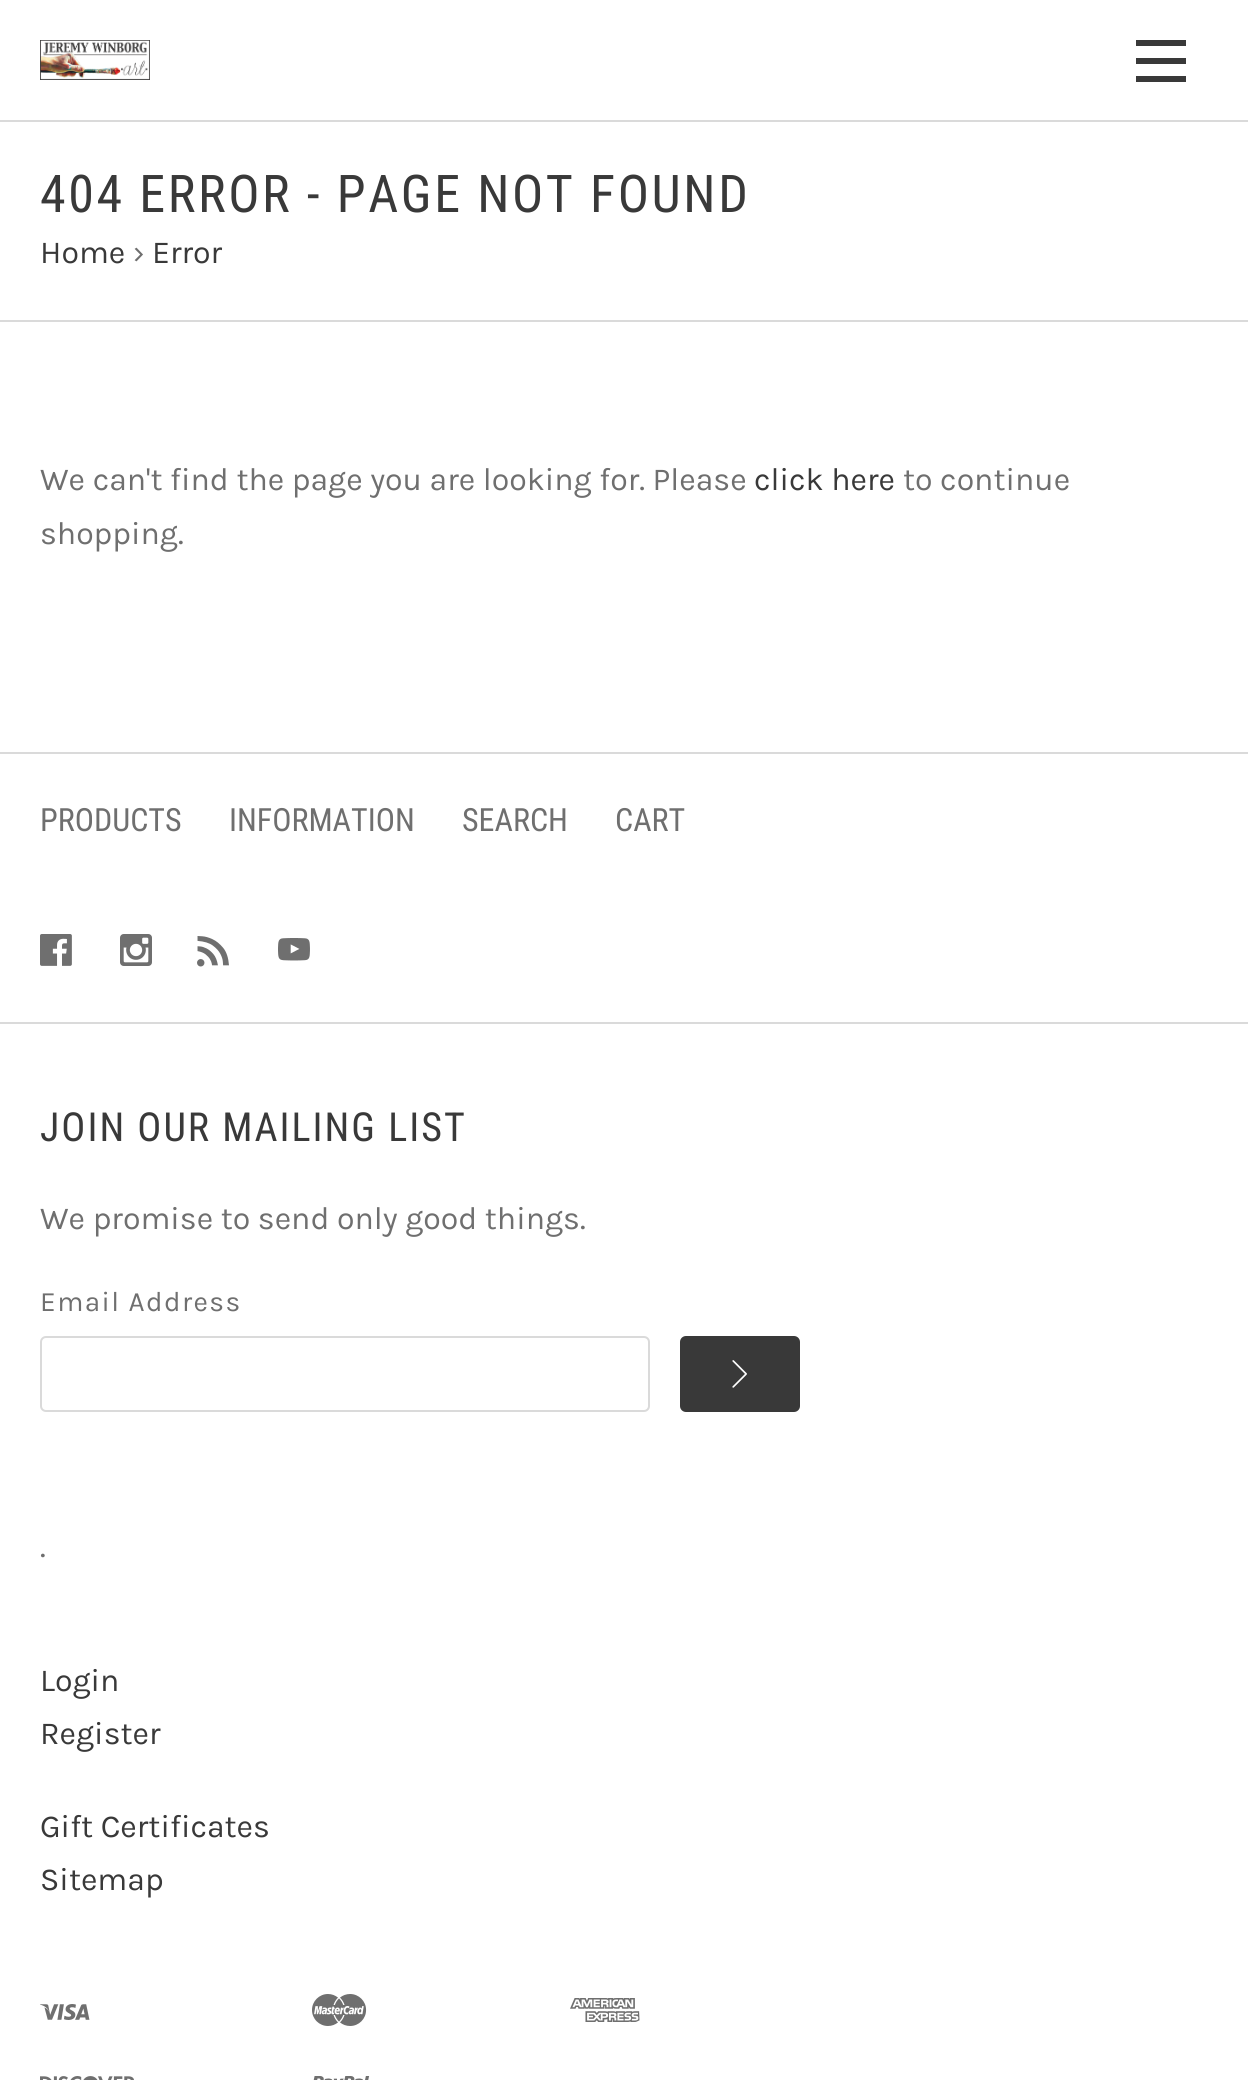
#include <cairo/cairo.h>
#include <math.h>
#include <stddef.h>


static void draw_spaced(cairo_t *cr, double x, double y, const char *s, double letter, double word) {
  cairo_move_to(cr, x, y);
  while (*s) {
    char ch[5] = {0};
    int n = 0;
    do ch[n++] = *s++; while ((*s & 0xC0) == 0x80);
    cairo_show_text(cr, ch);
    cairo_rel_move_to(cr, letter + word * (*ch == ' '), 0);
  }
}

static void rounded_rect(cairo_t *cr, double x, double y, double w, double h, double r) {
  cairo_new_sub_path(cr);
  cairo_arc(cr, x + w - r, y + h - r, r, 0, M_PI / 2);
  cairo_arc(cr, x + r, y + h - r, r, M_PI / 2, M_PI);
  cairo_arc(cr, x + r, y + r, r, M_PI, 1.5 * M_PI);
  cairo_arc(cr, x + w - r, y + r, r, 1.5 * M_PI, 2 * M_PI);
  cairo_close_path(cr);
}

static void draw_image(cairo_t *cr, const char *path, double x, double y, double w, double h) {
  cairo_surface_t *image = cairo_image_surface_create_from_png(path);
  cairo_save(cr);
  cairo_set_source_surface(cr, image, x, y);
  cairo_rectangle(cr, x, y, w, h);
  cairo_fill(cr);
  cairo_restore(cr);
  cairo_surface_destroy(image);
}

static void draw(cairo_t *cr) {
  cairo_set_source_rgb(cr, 1, 1, 1);
  cairo_paint(cr);
  draw_image(cr, "images/1.png", 40, 40, 110, 40);
  cairo_set_source_rgb(cr, 57 / 255.0, 57 / 255.0, 57 / 255.0);
  cairo_rectangle(cr, 1136, 58, 50, 6);
  cairo_fill(cr);
  cairo_rectangle(cr, 1136, 40, 50, 6);
  cairo_fill(cr);
  cairo_rectangle(cr, 1136, 76, 50, 6);
  cairo_fill(cr);
  cairo_set_source_rgb(cr, 218 / 255.0, 218 / 255.0, 218 / 255.0);
  cairo_rectangle(cr, 0, 120, 1248, 2);
  cairo_fill(cr);
  cairo_rectangle(cr, 0, 320, 1248, 2);
  cairo_fill(cr);
  cairo_rectangle(cr, 0, 752, 1248, 2);
  cairo_fill(cr);
  cairo_rectangle(cr, 0, 1022, 1248, 2);
  cairo_fill(cr);
  draw_image(cr, "images/2.png", 40, 934, 32, 32);
  draw_image(cr, "images/3.png", 120, 934, 32, 32);
  draw_image(cr, "images/4.png", 197, 936, 32, 31);
  draw_image(cr, "images/5.png", 278, 938, 32, 23);
  rounded_rect(cr, 41, 1337, 608, 74, 5);
  cairo_stroke(cr);
  cairo_set_source_rgb(cr, 57 / 255.0, 57 / 255.0, 57 / 255.0);
  rounded_rect(cr, 681, 1337, 118, 74, 5);
  cairo_fill_preserve(cr);
  cairo_stroke(cr);
  draw_image(cr, "images/6.png", 732, 1360, 15, 28);
  draw_image(cr, "images/7.png", 40, 2004, 50, 16);
  draw_image(cr, "images/8.png", 312, 1994, 55, 32);
  draw_image(cr, "images/9.png", 570, 1998, 70, 24);
  draw_image(cr, "images/10.png", 40, 2076, 94, 4);
  draw_image(cr, "images/11.png", 313, 2076, 57, 4);
  cairo_select_font_face(cr, "Roboto Condensed", CAIRO_FONT_SLANT_NORMAL, CAIRO_FONT_WEIGHT_NORMAL);
  cairo_set_font_size(cr, 52);
  draw_spaced(cr, 40, 212, "404 ERROR - PAGE NOT FOUND", 2.6, 0);
  cairo_select_font_face(cr, "Karla", CAIRO_FONT_SLANT_NORMAL, CAIRO_FONT_WEIGHT_NORMAL);
  cairo_set_font_size(cr, 32);
  cairo_move_to(cr, 40, 263);
  cairo_show_text(cr, "Home");
  cairo_set_source_rgb(cr, 111 / 255.0, 111 / 255.0, 111 / 255.0);
  cairo_move_to(cr, 133, 263);
  cairo_show_text(cr, "›");
  cairo_set_source_rgb(cr, 57 / 255.0, 57 / 255.0, 57 / 255.0);
  cairo_move_to(cr, 152, 263);
  cairo_show_text(cr, "Error");
  cairo_set_source_rgb(cr, 111 / 255.0, 111 / 255.0, 111 / 255.0);
  cairo_move_to(cr, 40, 490);
  cairo_show_text(cr, "We can't find the page you are looking for. Please");
  cairo_set_source_rgb(cr, 57 / 255.0, 57 / 255.0, 57 / 255.0);
  cairo_move_to(cr, 754, 490);
  cairo_show_text(cr, "click here");
  cairo_set_source_rgb(cr, 111 / 255.0, 111 / 255.0, 111 / 255.0);
  cairo_move_to(cr, 903, 490);
  cairo_show_text(cr, "to continue");
  cairo_move_to(cr, 40, 544);
  cairo_show_text(cr, "shopping.");
  cairo_select_font_face(cr, "Roboto Condensed", CAIRO_FONT_SLANT_NORMAL, CAIRO_FONT_WEIGHT_NORMAL);
  cairo_move_to(cr, 40, 831);
  cairo_show_text(cr, "PRODUCTS");
  cairo_move_to(cr, 229, 831);
  cairo_show_text(cr, "INFORMATION");
  cairo_move_to(cr, 462, 831);
  cairo_show_text(cr, "SEARCH");
  cairo_move_to(cr, 615, 831);
  cairo_show_text(cr, "CART");
  cairo_set_font_size(cr, 40);
  cairo_set_source_rgb(cr, 57 / 255.0, 57 / 255.0, 57 / 255.0);
  draw_spaced(cr, 40, 1141, "JOIN OUR MAILING LIST", 2, 0);
  cairo_select_font_face(cr, "Karla", CAIRO_FONT_SLANT_NORMAL, CAIRO_FONT_WEIGHT_NORMAL);
  cairo_set_font_size(cr, 32);
  cairo_set_source_rgb(cr, 111 / 255.0, 111 / 255.0, 111 / 255.0);
  cairo_move_to(cr, 40, 1229);
  cairo_show_text(cr, "We promise to send only good things.");
  cairo_set_font_size(cr, 28);
  draw_spaced(cr, 40, 1311, "Email Address", 1.4, 0);
  cairo_set_font_size(cr, 32);
  cairo_move_to(cr, 40, 1557);
  cairo_show_text(cr, ".");
  cairo_set_source_rgb(cr, 57 / 255.0, 57 / 255.0, 57 / 255.0);
  cairo_move_to(cr, 40, 1691);
  cairo_show_text(cr, "Login");
  cairo_move_to(cr, 40, 1744);
  cairo_show_text(cr, "Register");
  cairo_move_to(cr, 40, 1837);
  cairo_show_text(cr, "Gift Certificates");
  cairo_move_to(cr, 40, 1890);
  cairo_show_text(cr, "Sitemap");
}

int main(void) {
  cairo_surface_t *surface = cairo_image_surface_create(CAIRO_FORMAT_RGB24, 1248, 2080);
  cairo_t *cr = cairo_create(surface);
  cairo_font_options_t *options = cairo_font_options_create();
  cairo_font_options_set_hint_metrics(options, CAIRO_HINT_METRICS_OFF);
  cairo_font_options_set_hint_style(options, CAIRO_HINT_STYLE_NONE);
  cairo_set_font_options(cr, options);
  cairo_set_miter_limit(cr, 4);
  draw(cr);
  cairo_surface_write_to_png(surface, "out.png");
  cairo_font_options_destroy(options);
  cairo_destroy(cr);
  cairo_surface_destroy(surface);
  return 0;
}
